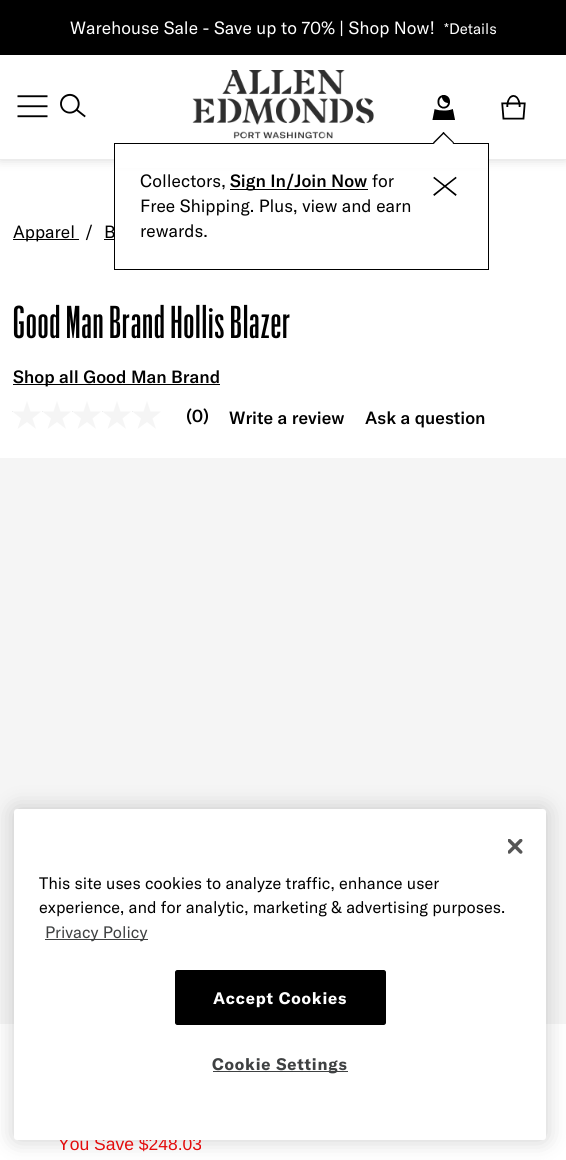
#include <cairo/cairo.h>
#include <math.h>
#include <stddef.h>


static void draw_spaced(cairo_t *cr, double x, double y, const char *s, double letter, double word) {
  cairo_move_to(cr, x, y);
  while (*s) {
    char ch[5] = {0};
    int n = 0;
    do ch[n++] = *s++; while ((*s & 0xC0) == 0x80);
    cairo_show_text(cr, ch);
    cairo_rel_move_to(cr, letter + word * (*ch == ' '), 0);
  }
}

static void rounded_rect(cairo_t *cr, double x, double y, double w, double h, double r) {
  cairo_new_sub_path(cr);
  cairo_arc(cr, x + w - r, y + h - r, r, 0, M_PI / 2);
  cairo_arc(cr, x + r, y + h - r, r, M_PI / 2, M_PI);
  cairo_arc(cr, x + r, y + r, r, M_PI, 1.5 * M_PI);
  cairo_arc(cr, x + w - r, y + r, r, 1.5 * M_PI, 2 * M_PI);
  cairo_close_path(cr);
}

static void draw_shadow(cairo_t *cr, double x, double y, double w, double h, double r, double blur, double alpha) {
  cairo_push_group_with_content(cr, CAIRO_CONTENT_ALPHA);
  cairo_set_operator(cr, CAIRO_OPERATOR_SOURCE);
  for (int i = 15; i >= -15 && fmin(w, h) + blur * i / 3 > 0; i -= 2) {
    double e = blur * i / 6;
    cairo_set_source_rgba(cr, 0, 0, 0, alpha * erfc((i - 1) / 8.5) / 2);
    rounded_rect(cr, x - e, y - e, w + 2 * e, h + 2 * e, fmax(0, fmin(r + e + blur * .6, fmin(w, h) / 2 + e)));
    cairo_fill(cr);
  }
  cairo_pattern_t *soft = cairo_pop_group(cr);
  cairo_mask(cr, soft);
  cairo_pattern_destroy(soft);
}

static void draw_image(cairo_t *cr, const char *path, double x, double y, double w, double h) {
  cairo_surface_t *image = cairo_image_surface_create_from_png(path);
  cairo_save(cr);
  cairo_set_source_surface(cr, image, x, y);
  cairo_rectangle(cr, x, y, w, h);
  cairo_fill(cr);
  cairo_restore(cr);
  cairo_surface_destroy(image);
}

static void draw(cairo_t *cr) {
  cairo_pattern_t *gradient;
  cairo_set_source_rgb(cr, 1, 1, 1);
  cairo_paint(cr);
  cairo_set_source_rgb(cr, 204 / 255.0, 204 / 255.0, 204 / 255.0);
  draw_shadow(cr, 0, -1, 566, 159, 0, 6, 1);
  cairo_set_source_rgb(cr, 1, 1, 1);
  cairo_rectangle(cr, 0, 55, 566, 104);
  cairo_fill(cr);
  cairo_set_source_rgb(cr, 0, 0, 0);
  cairo_rectangle(cr, 0, 0, 566, 55);
  cairo_fill(cr);
  draw_image(cr, "images/1.png", 17, 95, 31, 23);
  draw_image(cr, "images/2.png", 60, 93, 26, 25);
  draw_image(cr, "images/3.png", 192, 70, 182, 69);
  draw_image(cr, "images/4.png", 501, 95, 25, 25);
  draw_image(cr, "images/5.png", 432, 95, 23, 25);
  cairo_set_source_rgb(cr, 1, 1, 1);
  cairo_rectangle(cr, 115, 159, 373, 9);
  cairo_fill(cr);
  cairo_rectangle(cr, 114.5, 143.5, 374, 126);
  cairo_set_source_rgb(cr, 0, 0, 0);
  cairo_set_line_width(cr, 1);
  cairo_stroke(cr);
  cairo_set_source_rgb(cr, 1, 1, 1);
  cairo_new_path(cr);
  cairo_move_to(cr, 443.5, 132);
  cairo_line_to(cr, 454, 142.5);
  cairo_line_to(cr, 443.5, 153);
  cairo_line_to(cr, 433, 142.5);
  cairo_close_path(cr);
  cairo_fill(cr);
  cairo_set_source_rgb(cr, 0, 0, 0);
  cairo_new_path(cr);
  cairo_move_to(cr, 443.5, 132);
  cairo_line_to(cr, 454, 142.5);
  cairo_line_to(cr, 453.5, 143.5);
  cairo_line_to(cr, 442.5, 133);
  cairo_close_path(cr);
  cairo_fill(cr);
  cairo_new_path(cr);
  cairo_move_to(cr, 443.5, 132);
  cairo_line_to(cr, 444.5, 133);
  cairo_line_to(cr, 434, 143.5);
  cairo_line_to(cr, 433, 142.5);
  cairo_close_path(cr);
  cairo_fill(cr);
  cairo_rectangle(cr, 230, 189, 138, 1);
  cairo_fill(cr);
  draw_image(cr, "images/6.png", 433, 176, 24, 20);
  cairo_rectangle(cr, 13, 239, 66, 1);
  cairo_fill(cr);
  cairo_rectangle(cr, 104, 239, 10, 1);
  cairo_fill(cr);
  cairo_rectangle(cr, 13, 384, 207, 1);
  cairo_fill(cr);
  gradient = cairo_pattern_create_linear(13, 401, 41, 401);
  cairo_pattern_add_color_stop_rgba(gradient, 0, 63 / 255.0, 65 / 255.0, 69 / 255.0, 1);
  cairo_pattern_add_color_stop_rgba(gradient, 0.01, 245 / 255.0, 245 / 255.0, 245 / 255.0, 1);
  cairo_set_source(cr, gradient);
  cairo_pattern_destroy(gradient);
  cairo_new_path(cr);
  cairo_move_to(cr, 41, 411.5);
  cairo_line_to(cr, 30.5, 411.5);
  cairo_line_to(cr, 27, 401);
  cairo_line_to(cr, 23.5, 411.5);
  cairo_line_to(cr, 12.5, 411.5);
  cairo_line_to(cr, 21, 418.5);
  cairo_line_to(cr, 17.5, 429);
  cairo_line_to(cr, 27, 422);
  cairo_line_to(cr, 36, 429);
  cairo_line_to(cr, 32.5, 418.5);
  cairo_close_path(cr);
  cairo_fill(cr);
  gradient = cairo_pattern_create_linear(43, 401, 71, 401);
  cairo_pattern_add_color_stop_rgba(gradient, 0, 63 / 255.0, 65 / 255.0, 69 / 255.0, 1);
  cairo_pattern_add_color_stop_rgba(gradient, 0.01, 245 / 255.0, 245 / 255.0, 245 / 255.0, 1);
  cairo_set_source(cr, gradient);
  cairo_pattern_destroy(gradient);
  cairo_new_path(cr);
  cairo_move_to(cr, 71, 411.5);
  cairo_line_to(cr, 60.5, 411.5);
  cairo_line_to(cr, 57, 401);
  cairo_line_to(cr, 53.5, 411.5);
  cairo_line_to(cr, 42.5, 411.5);
  cairo_line_to(cr, 51, 418.5);
  cairo_line_to(cr, 47.5, 429);
  cairo_line_to(cr, 57, 422);
  cairo_line_to(cr, 66, 429);
  cairo_line_to(cr, 62.5, 418.5);
  cairo_close_path(cr);
  cairo_fill(cr);
  gradient = cairo_pattern_create_linear(73, 401, 101, 401);
  cairo_pattern_add_color_stop_rgba(gradient, 0, 63 / 255.0, 65 / 255.0, 69 / 255.0, 1);
  cairo_pattern_add_color_stop_rgba(gradient, 0.01, 245 / 255.0, 245 / 255.0, 245 / 255.0, 1);
  cairo_set_source(cr, gradient);
  cairo_pattern_destroy(gradient);
  cairo_new_path(cr);
  cairo_move_to(cr, 101, 411.5);
  cairo_line_to(cr, 90.5, 411.5);
  cairo_line_to(cr, 87, 401);
  cairo_line_to(cr, 83.5, 411.5);
  cairo_line_to(cr, 72.5, 411.5);
  cairo_line_to(cr, 81, 418.5);
  cairo_line_to(cr, 77.5, 429);
  cairo_line_to(cr, 87, 422);
  cairo_line_to(cr, 96, 429);
  cairo_line_to(cr, 92.5, 418.5);
  cairo_close_path(cr);
  cairo_fill(cr);
  gradient = cairo_pattern_create_linear(103, 401, 131, 401);
  cairo_pattern_add_color_stop_rgba(gradient, 0, 63 / 255.0, 65 / 255.0, 69 / 255.0, 1);
  cairo_pattern_add_color_stop_rgba(gradient, 0.01, 245 / 255.0, 245 / 255.0, 245 / 255.0, 1);
  cairo_set_source(cr, gradient);
  cairo_pattern_destroy(gradient);
  cairo_new_path(cr);
  cairo_move_to(cr, 131, 411.5);
  cairo_line_to(cr, 120.5, 411.5);
  cairo_line_to(cr, 117, 401);
  cairo_line_to(cr, 113.5, 411.5);
  cairo_line_to(cr, 102.5, 411.5);
  cairo_line_to(cr, 111, 418.5);
  cairo_line_to(cr, 107.5, 429);
  cairo_line_to(cr, 117, 422);
  cairo_line_to(cr, 126, 429);
  cairo_line_to(cr, 122.5, 418.5);
  cairo_close_path(cr);
  cairo_fill(cr);
  gradient = cairo_pattern_create_linear(133, 401, 161, 401);
  cairo_pattern_add_color_stop_rgba(gradient, 0, 63 / 255.0, 65 / 255.0, 69 / 255.0, 1);
  cairo_pattern_add_color_stop_rgba(gradient, 0.01, 245 / 255.0, 245 / 255.0, 245 / 255.0, 1);
  cairo_set_source(cr, gradient);
  cairo_pattern_destroy(gradient);
  cairo_new_path(cr);
  cairo_move_to(cr, 161, 411.5);
  cairo_line_to(cr, 150.5, 411.5);
  cairo_line_to(cr, 147, 401);
  cairo_line_to(cr, 143.5, 411.5);
  cairo_line_to(cr, 132.5, 411.5);
  cairo_line_to(cr, 141, 418.5);
  cairo_line_to(cr, 137.5, 429);
  cairo_line_to(cr, 147, 422);
  cairo_line_to(cr, 156, 429);
  cairo_line_to(cr, 152.5, 418.5);
  cairo_close_path(cr);
  cairo_fill(cr);
  cairo_set_source_rgb(cr, 245 / 255.0, 245 / 255.0, 245 / 255.0);
  cairo_rectangle(cr, 0, 458, 566, 566);
  cairo_fill(cr);
  cairo_set_source_rgb(cr, 0, 0, 0);
  draw_shadow(cr, 14, 809, 532, 331, 3, 11, 0.2);
  cairo_select_font_face(cr, "GT America", CAIRO_FONT_SLANT_NORMAL, CAIRO_FONT_WEIGHT_NORMAL);
  cairo_set_font_size(cr, 17.5);
  cairo_set_source_rgb(cr, 1, 1, 1);
  cairo_move_to(cr, 70, 34);
  cairo_show_text(cr, "Warehouse Sale - Save up to 70% | Shop Now!");
  cairo_set_font_size(cr, 15);
  cairo_move_to(cr, 444, 34);
  cairo_show_text(cr, "*Details");
  cairo_set_font_size(cr, 17.5);
  cairo_set_source_rgb(cr, 0, 0, 0);
  cairo_move_to(cr, 140, 187);
  cairo_show_text(cr, "Collectors,");
  cairo_select_font_face(cr, "GT America Medium", CAIRO_FONT_SLANT_NORMAL, CAIRO_FONT_WEIGHT_NORMAL);
  cairo_move_to(cr, 230, 187);
  cairo_show_text(cr, "Sign In/Join Now");
  cairo_select_font_face(cr, "GT America", CAIRO_FONT_SLANT_NORMAL, CAIRO_FONT_WEIGHT_NORMAL);
  cairo_move_to(cr, 372, 187);
  cairo_show_text(cr, "for");
  cairo_move_to(cr, 140, 212);
  cairo_show_text(cr, "Free Shipping. Plus, view and earn");
  cairo_move_to(cr, 140, 237);
  cairo_show_text(cr, "rewards.");
  cairo_move_to(cr, 13, 238);
  cairo_show_text(cr, "Apparel");
  cairo_move_to(cr, 85, 238);
  cairo_show_text(cr, "/");
  cairo_move_to(cr, 104, 238);
  cairo_show_text(cr, "B");
  cairo_select_font_face(cr, "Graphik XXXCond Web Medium", CAIRO_FONT_SLANT_NORMAL, CAIRO_FONT_WEIGHT_NORMAL);
  cairo_set_font_size(cr, 45);
  draw_spaced(cr, 13, 338, "Good Man Brand Hollis Blazer", 1.25, 0);
  cairo_select_font_face(cr, "GT America Medium", CAIRO_FONT_SLANT_NORMAL, CAIRO_FONT_WEIGHT_NORMAL);
  cairo_set_font_size(cr, 17.5);
  cairo_move_to(cr, 13, 383);
  cairo_show_text(cr, "Shop all Good Man Brand");
  cairo_move_to(cr, 186, 422);
  cairo_show_text(cr, "(0)");
  cairo_move_to(cr, 229, 424);
  cairo_show_text(cr, "Write a review");
  cairo_move_to(cr, 365, 424);
  cairo_show_text(cr, "Ask a question");
  cairo_select_font_face(cr, "Liberation Sans", CAIRO_FONT_SLANT_NORMAL, CAIRO_FONT_WEIGHT_NORMAL);
  cairo_set_source_rgb(cr, 227 / 255.0, 11 / 255.0, 11 / 255.0);
  cairo_move_to(cr, 58, 1150);
  cairo_show_text(cr, "You Save $248.03");
  cairo_set_source_rgb(cr, 1, 1, 1);
  rounded_rect(cr, 14, 809, 532, 331, 3);
  cairo_fill(cr);
  draw_image(cr, "images/7.png", 508, 839, 15, 15);
  cairo_select_font_face(cr, "GT America", CAIRO_FONT_SLANT_NORMAL, CAIRO_FONT_WEIGHT_NORMAL);
  cairo_set_font_size(cr, 16.4);
  cairo_set_source_rgb(cr, 0, 0, 0);
  cairo_move_to(cr, 39, 889);
  cairo_show_text(cr, "This site uses cookies to analyze traffic, enhance user");
  cairo_move_to(cr, 39, 913);
  cairo_show_text(cr, "experience, and for analytic, marketing & advertising purposes.");
  cairo_set_source_rgb(cr, 63 / 255.0, 65 / 255.0, 66 / 255.0);
  cairo_rectangle(cr, 45, 939, 103, 1);
  cairo_fill(cr);
  cairo_move_to(cr, 45, 938);
  cairo_show_text(cr, "Privacy Policy");
  cairo_set_source_rgb(cr, 0, 0, 0);
  rounded_rect(cr, 175.5, 970.5, 210, 54, 2);
  cairo_fill_preserve(cr);
  cairo_stroke(cr);
  cairo_select_font_face(cr, "GT America", CAIRO_FONT_SLANT_NORMAL, CAIRO_FONT_WEIGHT_BOLD);
  cairo_set_source_rgb(cr, 1, 1, 1);
  draw_spaced(cr, 213, 1004, "Accept Cookies", 0.8, 0);
  cairo_set_source_rgb(cr, 63 / 255.0, 65 / 255.0, 66 / 255.0);
  cairo_rectangle(cr, 213, 1071, 135, 1);
  cairo_fill(cr);
  draw_spaced(cr, 212, 1070, "Cookie Settings", 0.8, 0);
}

int main(void) {
  cairo_surface_t *surface = cairo_image_surface_create(CAIRO_FORMAT_RGB24, 566, 1160);
  cairo_t *cr = cairo_create(surface);
  cairo_font_options_t *options = cairo_font_options_create();
  cairo_font_options_set_hint_metrics(options, CAIRO_HINT_METRICS_OFF);
  cairo_font_options_set_hint_style(options, CAIRO_HINT_STYLE_NONE);
  cairo_set_font_options(cr, options);
  cairo_set_miter_limit(cr, 4);
  draw(cr);
  cairo_surface_write_to_png(surface, "out.png");
  cairo_font_options_destroy(options);
  cairo_destroy(cr);
  cairo_surface_destroy(surface);
  return 0;
}
